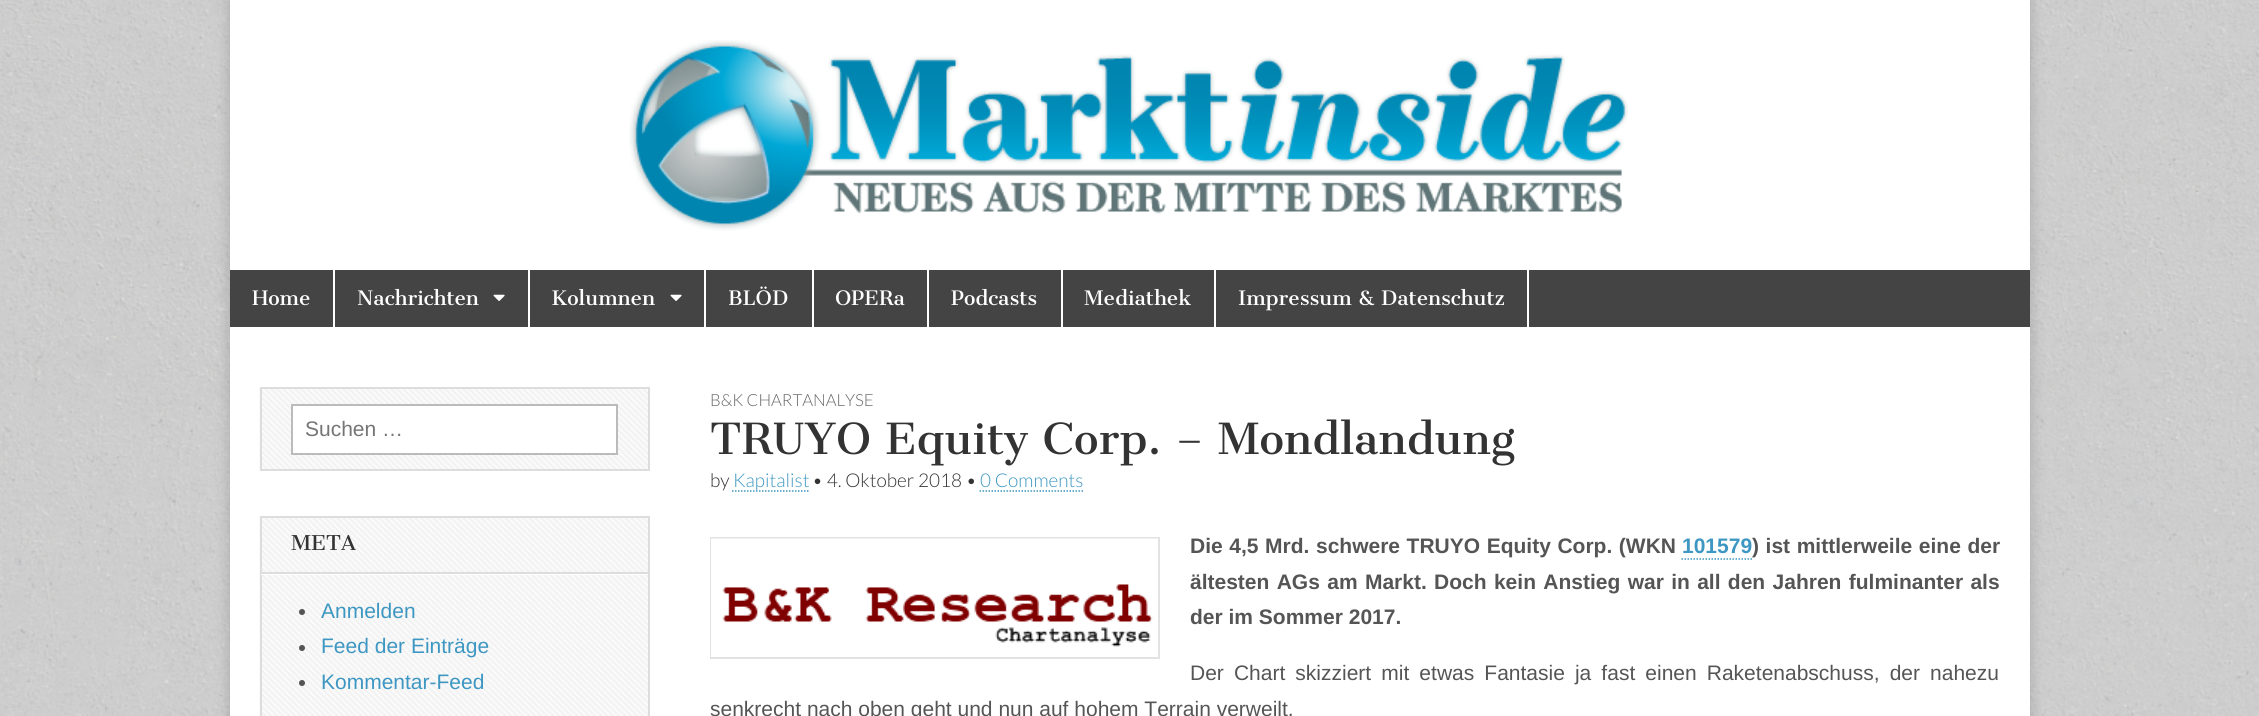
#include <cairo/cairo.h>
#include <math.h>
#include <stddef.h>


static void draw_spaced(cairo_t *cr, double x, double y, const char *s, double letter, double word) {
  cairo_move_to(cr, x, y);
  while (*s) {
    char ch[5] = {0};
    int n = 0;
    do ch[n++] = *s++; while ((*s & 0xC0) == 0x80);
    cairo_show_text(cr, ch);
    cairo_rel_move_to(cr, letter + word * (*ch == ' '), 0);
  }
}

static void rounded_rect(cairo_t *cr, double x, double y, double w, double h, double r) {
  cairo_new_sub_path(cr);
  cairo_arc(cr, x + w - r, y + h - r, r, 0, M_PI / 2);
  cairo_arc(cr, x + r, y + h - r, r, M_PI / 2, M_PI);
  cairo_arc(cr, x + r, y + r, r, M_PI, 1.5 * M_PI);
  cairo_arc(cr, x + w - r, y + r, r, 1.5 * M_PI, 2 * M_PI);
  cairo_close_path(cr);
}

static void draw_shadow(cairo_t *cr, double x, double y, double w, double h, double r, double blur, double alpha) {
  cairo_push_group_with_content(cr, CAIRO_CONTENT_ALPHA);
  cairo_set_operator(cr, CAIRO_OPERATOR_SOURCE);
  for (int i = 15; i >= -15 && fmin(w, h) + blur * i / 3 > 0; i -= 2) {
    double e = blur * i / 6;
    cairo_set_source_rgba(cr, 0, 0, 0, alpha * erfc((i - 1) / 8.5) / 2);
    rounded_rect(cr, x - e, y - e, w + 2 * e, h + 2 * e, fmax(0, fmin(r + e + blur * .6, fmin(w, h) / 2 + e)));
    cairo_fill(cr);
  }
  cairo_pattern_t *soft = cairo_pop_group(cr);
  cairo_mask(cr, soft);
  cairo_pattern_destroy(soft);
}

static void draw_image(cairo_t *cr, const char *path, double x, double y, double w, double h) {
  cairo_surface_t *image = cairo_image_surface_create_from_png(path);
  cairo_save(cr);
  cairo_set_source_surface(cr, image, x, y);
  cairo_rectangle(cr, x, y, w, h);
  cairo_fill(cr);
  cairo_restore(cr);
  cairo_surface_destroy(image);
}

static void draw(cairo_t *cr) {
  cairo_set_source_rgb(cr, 1, 1, 1);
  cairo_paint(cr);
  draw_image(cr, "images/1.png", 0, 0, 2259, 716);
  cairo_set_source_rgb(cr, 0, 0, 0);
  draw_shadow(cr, 230, 0, 1800, 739, 0, 7.5, 0.2);
  cairo_set_source_rgb(cr, 1, 1, 1);
  cairo_rectangle(cr, 230, 0, 1800, 716);
  cairo_fill(cr);
  draw_image(cr, "images/2.png", 629, 40, 999, 191);
  cairo_set_source_rgb(cr, 68 / 255.0, 68 / 255.0, 68 / 255.0);
  cairo_rectangle(cr, 230, 270, 1800, 57);
  cairo_fill(cr);
  cairo_set_source_rgb(cr, 1, 1, 1);
  cairo_rectangle(cr, 333, 270, 2, 57);
  cairo_fill(cr);
  cairo_rectangle(cr, 528, 270, 2, 57);
  cairo_fill(cr);
  draw_image(cr, "images/3.png", 493, 294, 12, 7);
  cairo_rectangle(cr, 704, 270, 2, 57);
  cairo_fill(cr);
  draw_image(cr, "images/3.png", 670, 294, 12, 7);
  cairo_rectangle(cr, 812, 270, 2, 57);
  cairo_fill(cr);
  cairo_rectangle(cr, 927, 270, 2, 57);
  cairo_fill(cr);
  cairo_rectangle(cr, 1061, 270, 2, 57);
  cairo_fill(cr);
  cairo_rectangle(cr, 1214, 270, 2, 57);
  cairo_fill(cr);
  cairo_rectangle(cr, 1527, 270, 2, 57);
  cairo_fill(cr);
  draw_image(cr, "images/4.png", 259, 387, 389, 84);
  cairo_rectangle(cr, 261, 388, 388, 82);
  cairo_set_source_rgb(cr, 221 / 255.0, 221 / 255.0, 221 / 255.0);
  cairo_stroke(cr);
  cairo_set_source_rgb(cr, 1, 1, 1);
  cairo_rectangle(cr, 292, 405, 325, 49);
  cairo_fill_preserve(cr);
  cairo_set_source_rgb(cr, 187 / 255.0, 187 / 255.0, 187 / 255.0);
  cairo_stroke(cr);
  draw_image(cr, "images/5.png", 259, 516, 389, 200);
  cairo_rectangle(cr, 261, 517, 388, 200);
  cairo_set_source_rgb(cr, 221 / 255.0, 221 / 255.0, 221 / 255.0);
  cairo_stroke(cr);
  cairo_set_source_rgb(cr, 1, 1, 1);
  cairo_rectangle(cr, 261, 574, 387, 1);
  cairo_fill(cr);
  cairo_set_source_rgb(cr, 221 / 255.0, 221 / 255.0, 221 / 255.0);
  cairo_rectangle(cr, 261, 572, 387, 2);
  cairo_fill(cr);
  cairo_set_source_rgb(cr, 85 / 255.0, 85 / 255.0, 85 / 255.0);
  cairo_arc(cr, 302, 612, 3, 0, 2 * M_PI);
  cairo_fill(cr);
  cairo_arc(cr, 302, 648, 3, 0, 2 * M_PI);
  cairo_fill(cr);
  cairo_arc(cr, 302, 683, 3, 0, 2 * M_PI);
  cairo_fill(cr);
  cairo_new_path(cr);
  cairo_move_to(cr, 732, 491);
  cairo_line_to(cr, 808.5, 491);
  cairo_set_source_rgb(cr, 61 / 255.0, 151 / 255.0, 194 / 255.0);
  cairo_set_line_width(cr, 1.5);
  cairo_set_dash(cr, (double[]){1.5, 1.5}, 2, 0);
  cairo_stroke(cr);
  cairo_new_path(cr);
  cairo_move_to(cr, 979.5, 491);
  cairo_line_to(cr, 1083, 491);
  cairo_stroke(cr);
  cairo_rectangle(cr, 711, 538, 448, 120);
  cairo_set_source_rgb(cr, 226 / 255.0, 226 / 255.0, 226 / 255.0);
  cairo_set_line_width(cr, 2);
  cairo_set_dash(cr, NULL, 0, 0);
  cairo_stroke(cr);
  draw_image(cr, "images/6.png", 711, 538, 447, 119);
  cairo_new_path(cr);
  cairo_move_to(cr, 1681.5, 559);
  cairo_line_to(cr, 1752, 559);
  cairo_set_source_rgb(cr, 61 / 255.0, 151 / 255.0, 194 / 255.0);
  cairo_set_line_width(cr, 1.5);
  cairo_set_dash(cr, (double[]){1.5, 1.5}, 2, 0);
  cairo_stroke(cr);
  cairo_select_font_face(cr, "Cantata One", CAIRO_FONT_SLANT_NORMAL, CAIRO_FONT_WEIGHT_NORMAL);
  cairo_set_font_size(cr, 19.5);
  cairo_set_source_rgb(cr, 1, 1, 1);
  cairo_move_to(cr, 252, 305);
  cairo_show_text(cr, "Home");
  cairo_move_to(cr, 357, 305);
  cairo_show_text(cr, "Nachrichten");
  cairo_move_to(cr, 551, 305);
  cairo_show_text(cr, "Kolumnen");
  cairo_move_to(cr, 728, 305);
  cairo_show_text(cr, "BLÖD");
  cairo_move_to(cr, 835, 305);
  cairo_show_text(cr, "OPERa");
  cairo_move_to(cr, 951, 305);
  cairo_show_text(cr, "Podcasts");
  cairo_move_to(cr, 1084, 305);
  cairo_show_text(cr, "Mediathek");
  cairo_move_to(cr, 1238, 305);
  cairo_show_text(cr, "Impressum & Datenschutz");
  cairo_select_font_face(cr, "Liberation Sans", CAIRO_FONT_SLANT_NORMAL, CAIRO_FONT_WEIGHT_NORMAL);
  cairo_set_font_size(cr, 21);
  cairo_set_source_rgb(cr, 117 / 255.0, 117 / 255.0, 117 / 255.0);
  cairo_move_to(cr, 305, 436);
  cairo_show_text(cr, "Suchen …");
  cairo_select_font_face(cr, "Cantata One", CAIRO_FONT_SLANT_NORMAL, CAIRO_FONT_WEIGHT_NORMAL);
  cairo_set_font_size(cr, 20);
  cairo_set_source_rgb(cr, 51 / 255.0, 51 / 255.0, 51 / 255.0);
  cairo_move_to(cr, 291, 550);
  cairo_show_text(cr, "META");
  cairo_select_font_face(cr, "Liberation Sans", CAIRO_FONT_SLANT_NORMAL, CAIRO_FONT_WEIGHT_NORMAL);
  cairo_set_font_size(cr, 21);
  cairo_set_source_rgb(cr, 61 / 255.0, 151 / 255.0, 194 / 255.0);
  cairo_move_to(cr, 321, 618);
  cairo_show_text(cr, "Anmelden");
  cairo_move_to(cr, 321, 653);
  cairo_show_text(cr, "Feed der Einträge");
  cairo_move_to(cr, 321, 689);
  cairo_show_text(cr, "Kommentar-Feed");
  cairo_select_font_face(cr, "Lato Light", CAIRO_FONT_SLANT_NORMAL, CAIRO_FONT_WEIGHT_NORMAL);
  cairo_set_font_size(cr, 16.75);
  cairo_set_source_rgb(cr, 102 / 255.0, 102 / 255.0, 102 / 255.0);
  cairo_move_to(cr, 710, 406);
  cairo_show_text(cr, "B&K CHARTANALYSE");
  cairo_select_font_face(cr, "Cantata One", CAIRO_FONT_SLANT_NORMAL, CAIRO_FONT_WEIGHT_NORMAL);
  cairo_set_font_size(cr, 42);
  cairo_set_source_rgb(cr, 51 / 255.0, 51 / 255.0, 51 / 255.0);
  cairo_move_to(cr, 710, 454);
  cairo_show_text(cr, "TRUYO Equity Corp. – Mondlandung");
  cairo_select_font_face(cr, "Lato Light", CAIRO_FONT_SLANT_NORMAL, CAIRO_FONT_WEIGHT_NORMAL);
  cairo_set_font_size(cr, 19);
  cairo_move_to(cr, 710, 487);
  cairo_show_text(cr, "by");
  cairo_set_source_rgb(cr, 61 / 255.0, 151 / 255.0, 194 / 255.0);
  cairo_move_to(cr, 733, 487);
  cairo_show_text(cr, "Kapitalist");
  cairo_set_source_rgb(cr, 51 / 255.0, 51 / 255.0, 51 / 255.0);
  cairo_move_to(cr, 812, 487);
  cairo_show_text(cr, "• 4. Oktober 2018 •");
  cairo_set_source_rgb(cr, 61 / 255.0, 151 / 255.0, 194 / 255.0);
  cairo_move_to(cr, 980, 487);
  cairo_show_text(cr, "0 Comments");
  cairo_select_font_face(cr, "Liberation Sans", CAIRO_FONT_SLANT_NORMAL, CAIRO_FONT_WEIGHT_BOLD);
  cairo_set_font_size(cr, 21);
  cairo_set_source_rgb(cr, 85 / 255.0, 85 / 255.0, 85 / 255.0);
  draw_spaced(cr, 1190, 553, "Die 4,5 Mrd. schwere TRUYO Equity Corp. (WKN", 0, 0.75);
  cairo_set_source_rgb(cr, 61 / 255.0, 151 / 255.0, 194 / 255.0);
  cairo_move_to(cr, 1682, 553);
  cairo_show_text(cr, "101579");
  cairo_set_source_rgb(cr, 85 / 255.0, 85 / 255.0, 85 / 255.0);
  draw_spaced(cr, 1752, 553, ") ist mittlerweile eine der", 0, 0.75);
  draw_spaced(cr, 1190, 589, "ältesten AGs am Markt. Doch kein Anstieg war in all den Jahren fulminanter als", 0, 1.5);
  cairo_move_to(cr, 1190, 624);
  cairo_show_text(cr, "der im Sommer 2017.");
  cairo_select_font_face(cr, "Liberation Sans", CAIRO_FONT_SLANT_NORMAL, CAIRO_FONT_WEIGHT_NORMAL);
  draw_spaced(cr, 1190, 680, "Der Chart skizziert mit etwas Fantasie ja fast einen Raketenabschuss, der nahezu", 0, 4.25);
  cairo_move_to(cr, 710, 716);
  cairo_show_text(cr, "senkrecht nach oben geht und nun auf hohem Terrain verweilt.");
}

int main(void) {
  cairo_surface_t *surface = cairo_image_surface_create(CAIRO_FORMAT_RGB24, 2259, 716);
  cairo_t *cr = cairo_create(surface);
  cairo_font_options_t *options = cairo_font_options_create();
  cairo_font_options_set_hint_metrics(options, CAIRO_HINT_METRICS_OFF);
  cairo_font_options_set_hint_style(options, CAIRO_HINT_STYLE_NONE);
  cairo_set_font_options(cr, options);
  cairo_set_miter_limit(cr, 4);
  draw(cr);
  cairo_surface_write_to_png(surface, "out.png");
  cairo_font_options_destroy(options);
  cairo_destroy(cr);
  cairo_surface_destroy(surface);
  return 0;
}
